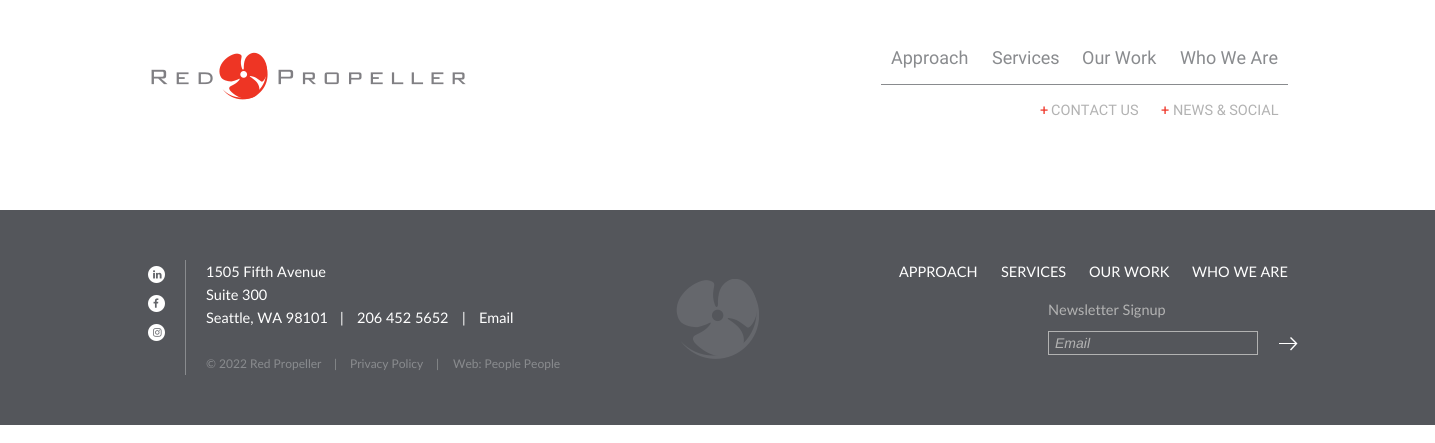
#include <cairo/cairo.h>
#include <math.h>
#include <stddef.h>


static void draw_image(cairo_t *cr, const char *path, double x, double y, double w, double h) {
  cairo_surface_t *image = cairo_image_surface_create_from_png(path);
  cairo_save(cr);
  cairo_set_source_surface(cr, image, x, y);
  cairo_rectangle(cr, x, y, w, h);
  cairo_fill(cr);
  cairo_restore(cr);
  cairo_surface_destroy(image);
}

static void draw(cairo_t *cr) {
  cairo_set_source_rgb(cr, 1, 1, 1);
  cairo_paint(cr);
  draw_image(cr, "images/2.png", 151, 63, 315, 37);
  draw_image(cr, "images/1.png", 219, 52, 49, 47);
  cairo_set_source_rgb(cr, 137 / 255.0, 139 / 255.0, 142 / 255.0);
  cairo_rectangle(cr, 881, 84, 407, 1);
  cairo_fill(cr);
  cairo_set_source_rgb(cr, 84 / 255.0, 86 / 255.0, 91 / 255.0);
  cairo_rectangle(cr, 0, 210, 1435, 215);
  cairo_fill(cr);
  cairo_set_source_rgb(cr, 1, 1, 1);
  cairo_arc(cr, 156.5, 274.5, 8.5, 0, 2 * M_PI);
  cairo_fill(cr);
  draw_image(cr, "images/3.png", 153, 270, 9, 9);
  cairo_arc(cr, 156.5, 303.5, 8.5, 0, 2 * M_PI);
  cairo_fill(cr);
  draw_image(cr, "images/4.png", 153, 298, 6, 10);
  cairo_arc(cr, 156.5, 332.5, 8.5, 0, 2 * M_PI);
  cairo_fill(cr);
  draw_image(cr, "images/5.png", 153, 328, 9, 9);
  cairo_set_source_rgb(cr, 137 / 255.0, 139 / 255.0, 142 / 255.0);
  cairo_rectangle(cr, 185, 260, 1, 115);
  cairo_fill(cr);
  draw_image(cr, "images/6.png", 676, 279, 83, 80);
  cairo_rectangle(cr, 1048.5, 331.5, 209, 23);
  cairo_set_source_rgb(cr, 178 / 255.0, 178 / 255.0, 178 / 255.0);
  cairo_set_line_width(cr, 1);
  cairo_stroke(cr);
  cairo_set_source_rgb(cr, 1, 1, 1);
  cairo_rectangle(cr, 1279, 343, 18, 1);
  cairo_fill(cr);
  cairo_new_path(cr);
  cairo_move_to(cr, 1290.5, 337.5);
  cairo_line_to(cr, 1296.5, 343.5);
  cairo_line_to(cr, 1290.5, 350);
  cairo_set_line_width(cr, 1.4);
  cairo_stroke(cr);
  cairo_select_font_face(cr, "Roboto", CAIRO_FONT_SLANT_NORMAL, CAIRO_FONT_WEIGHT_NORMAL);
  cairo_set_font_size(cr, 18);
  cairo_set_source_rgb(cr, 137 / 255.0, 139 / 255.0, 142 / 255.0);
  cairo_move_to(cr, 891, 64);
  cairo_show_text(cr, "Approach");
  cairo_move_to(cr, 992, 64);
  cairo_show_text(cr, "Services");
  cairo_move_to(cr, 1082, 64);
  cairo_show_text(cr, "Our Work");
  cairo_move_to(cr, 1180, 64);
  cairo_show_text(cr, "Who We Are");
  cairo_set_font_size(cr, 14.5);
  cairo_set_source_rgb(cr, 238 / 255.0, 49 / 255.0, 36 / 255.0);
  cairo_move_to(cr, 1040, 115);
  cairo_show_text(cr, "+");
  cairo_set_source_rgb(cr, 178 / 255.0, 178 / 255.0, 178 / 255.0);
  cairo_move_to(cr, 1051, 115);
  cairo_show_text(cr, "CONTACT US");
  cairo_set_source_rgb(cr, 238 / 255.0, 49 / 255.0, 36 / 255.0);
  cairo_move_to(cr, 1161, 115);
  cairo_show_text(cr, "+");
  cairo_set_source_rgb(cr, 178 / 255.0, 178 / 255.0, 178 / 255.0);
  cairo_move_to(cr, 1173, 115);
  cairo_show_text(cr, "NEWS & SOCIAL");
  cairo_select_font_face(cr, "Lato", CAIRO_FONT_SLANT_NORMAL, CAIRO_FONT_WEIGHT_NORMAL);
  cairo_set_source_rgb(cr, 1, 1, 1);
  cairo_move_to(cr, 206, 277);
  cairo_show_text(cr, "1505 Fifth Avenue");
  cairo_move_to(cr, 206, 300);
  cairo_show_text(cr, "Suite 300");
  cairo_move_to(cr, 206, 323);
  cairo_show_text(cr, "Seattle, WA 98101");
  cairo_move_to(cr, 340, 323);
  cairo_show_text(cr, "|");
  cairo_move_to(cr, 357, 323);
  cairo_show_text(cr, "206 452 5652");
  cairo_move_to(cr, 462, 323);
  cairo_show_text(cr, "|");
  cairo_move_to(cr, 479, 323);
  cairo_show_text(cr, "Email");
  cairo_set_font_size(cr, 12);
  cairo_set_source_rgb(cr, 137 / 255.0, 139 / 255.0, 142 / 255.0);
  cairo_move_to(cr, 206, 368);
  cairo_show_text(cr, "© 2022 Red Propeller");
  cairo_move_to(cr, 334, 368);
  cairo_show_text(cr, "|");
  cairo_move_to(cr, 350, 368);
  cairo_show_text(cr, "Privacy Policy");
  cairo_move_to(cr, 436, 368);
  cairo_show_text(cr, "|");
  cairo_move_to(cr, 453, 368);
  cairo_show_text(cr, "Web: People People");
  cairo_set_font_size(cr, 14.5);
  cairo_set_source_rgb(cr, 1, 1, 1);
  cairo_move_to(cr, 899, 277);
  cairo_show_text(cr, "APPROACH");
  cairo_move_to(cr, 1001, 277);
  cairo_show_text(cr, "SERVICES");
  cairo_move_to(cr, 1089, 277);
  cairo_show_text(cr, "OUR WORK");
  cairo_move_to(cr, 1192, 277);
  cairo_show_text(cr, "WHO WE ARE");
  cairo_set_source_rgb(cr, 178 / 255.0, 178 / 255.0, 178 / 255.0);
  cairo_move_to(cr, 1048, 315);
  cairo_show_text(cr, "Newsletter Signup");
  cairo_select_font_face(cr, "Liberation Sans", CAIRO_FONT_SLANT_ITALIC, CAIRO_FONT_WEIGHT_NORMAL);
  cairo_set_font_size(cr, 14);
  cairo_move_to(cr, 1055, 348);
  cairo_show_text(cr, "Email");
}

int main(void) {
  cairo_surface_t *surface = cairo_image_surface_create(CAIRO_FORMAT_RGB24, 1435, 443);
  cairo_t *cr = cairo_create(surface);
  cairo_font_options_t *options = cairo_font_options_create();
  cairo_font_options_set_hint_metrics(options, CAIRO_HINT_METRICS_OFF);
  cairo_font_options_set_hint_style(options, CAIRO_HINT_STYLE_NONE);
  cairo_set_font_options(cr, options);
  cairo_set_miter_limit(cr, 4);
  draw(cr);
  cairo_surface_write_to_png(surface, "out.png");
  cairo_font_options_destroy(options);
  cairo_destroy(cr);
  cairo_surface_destroy(surface);
  return 0;
}
